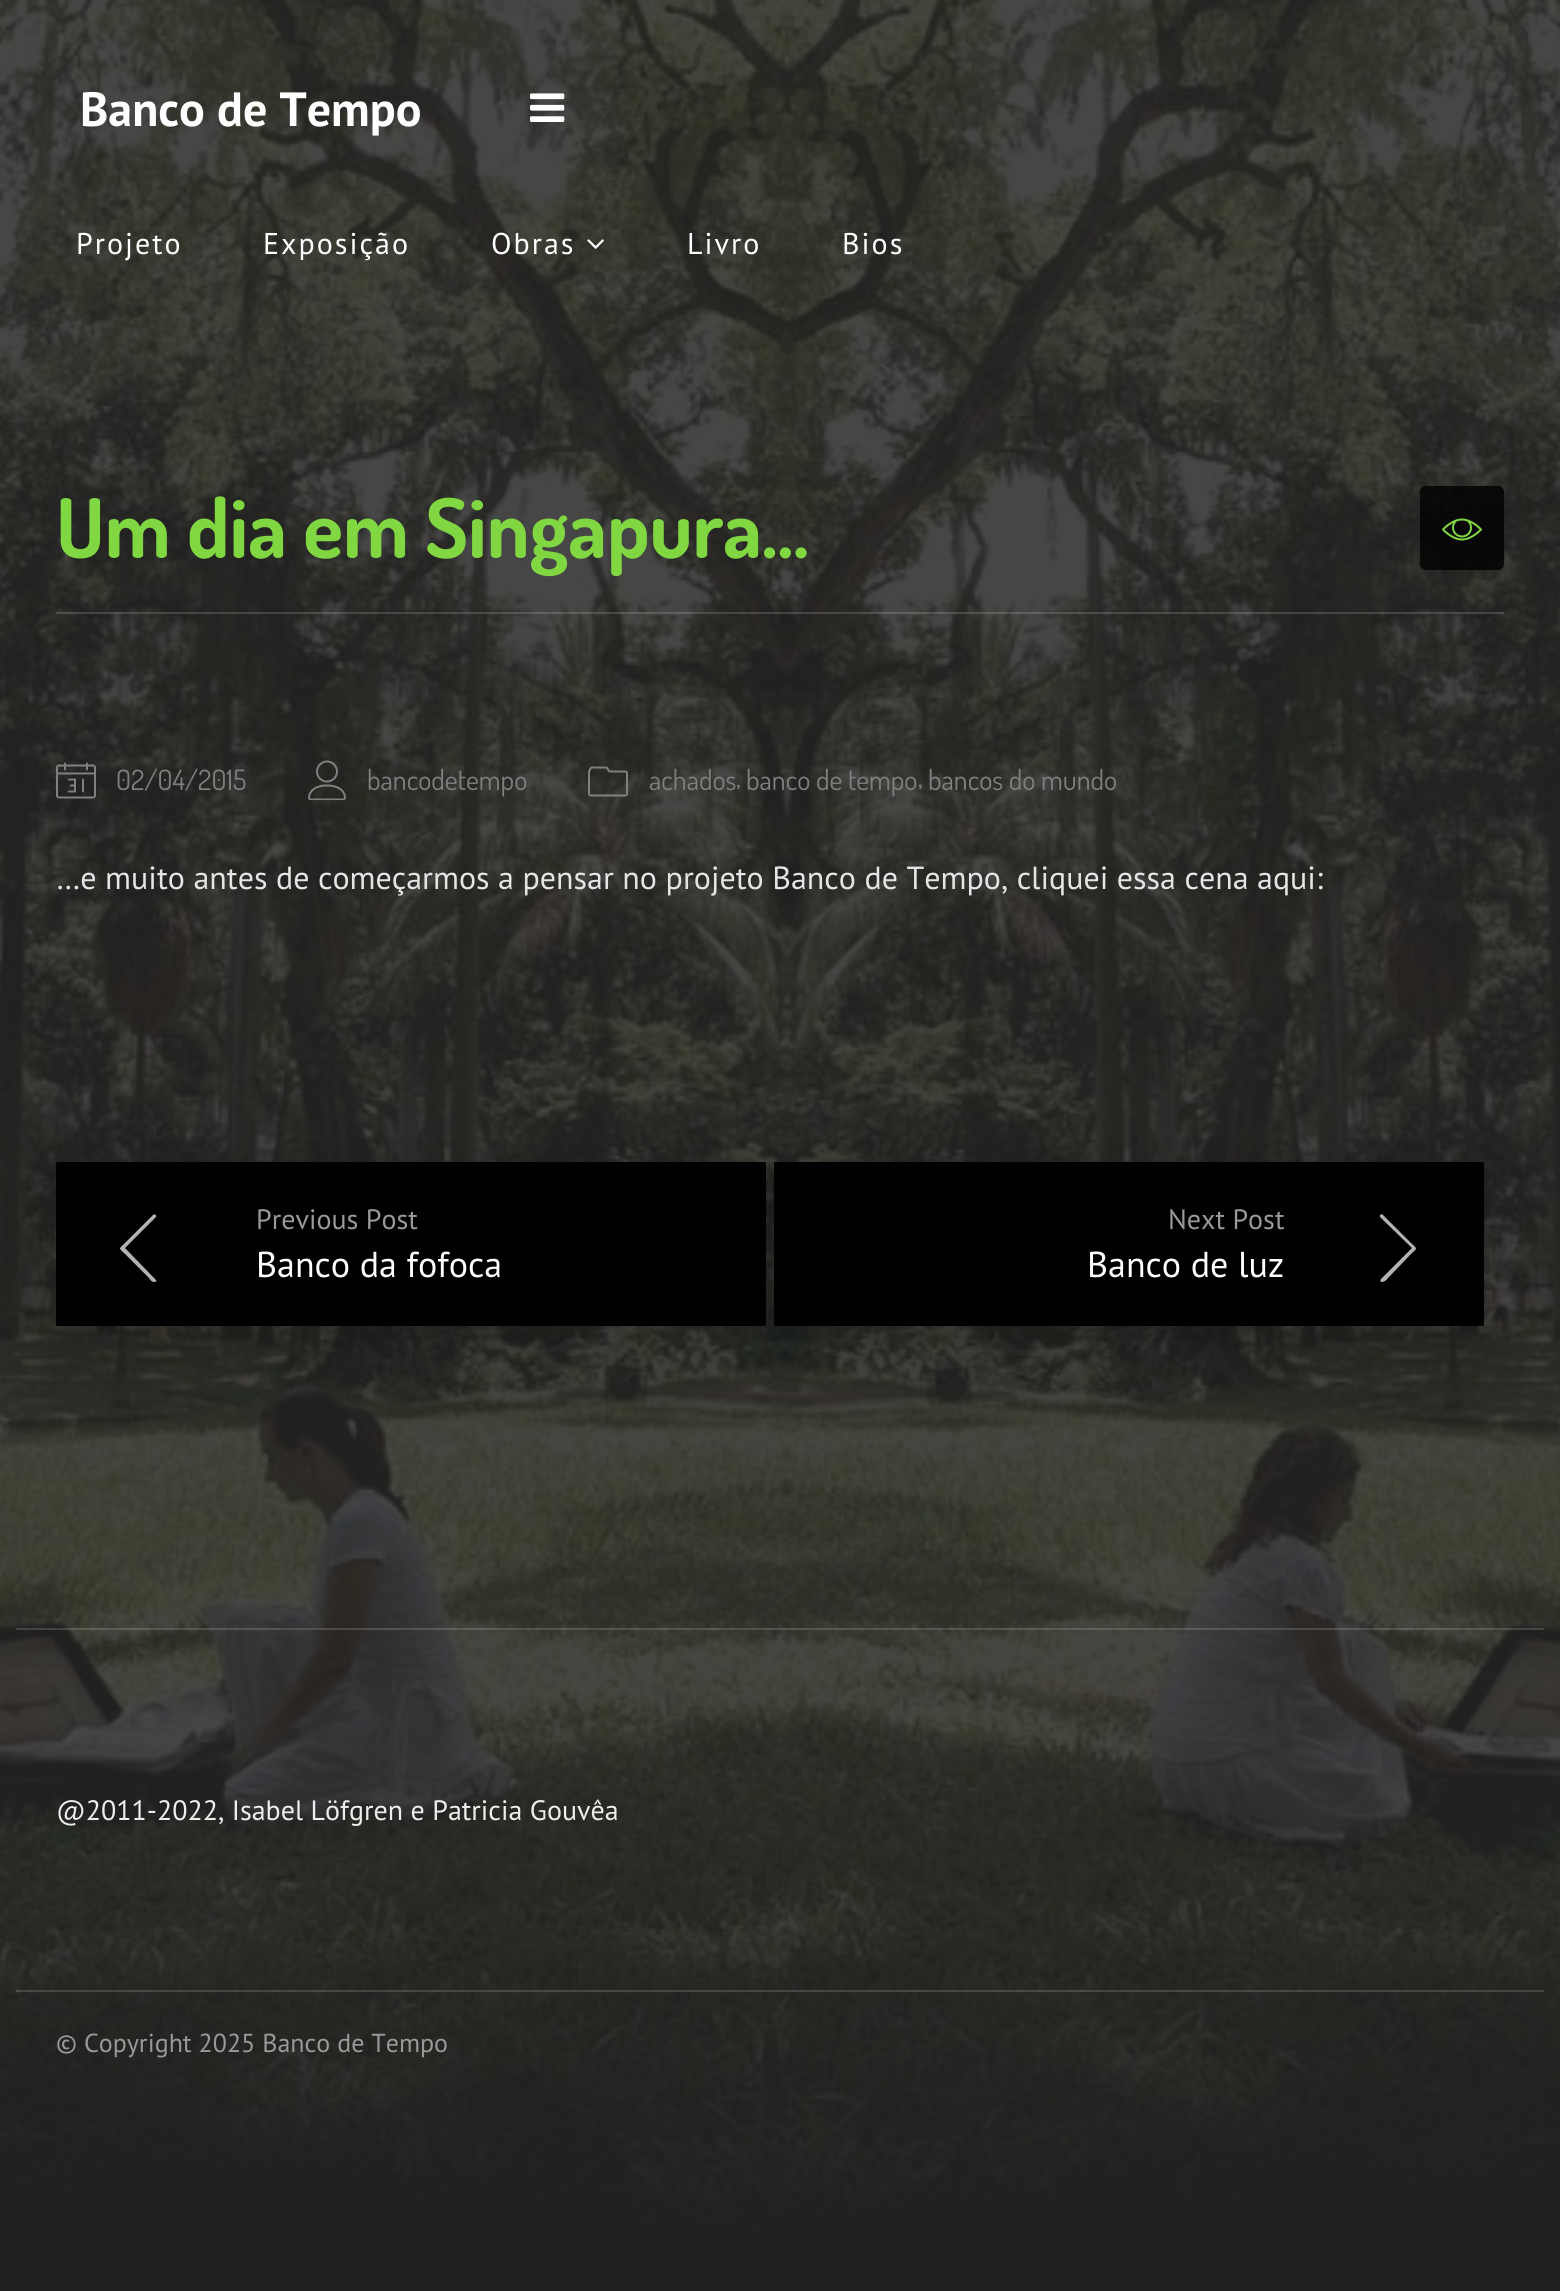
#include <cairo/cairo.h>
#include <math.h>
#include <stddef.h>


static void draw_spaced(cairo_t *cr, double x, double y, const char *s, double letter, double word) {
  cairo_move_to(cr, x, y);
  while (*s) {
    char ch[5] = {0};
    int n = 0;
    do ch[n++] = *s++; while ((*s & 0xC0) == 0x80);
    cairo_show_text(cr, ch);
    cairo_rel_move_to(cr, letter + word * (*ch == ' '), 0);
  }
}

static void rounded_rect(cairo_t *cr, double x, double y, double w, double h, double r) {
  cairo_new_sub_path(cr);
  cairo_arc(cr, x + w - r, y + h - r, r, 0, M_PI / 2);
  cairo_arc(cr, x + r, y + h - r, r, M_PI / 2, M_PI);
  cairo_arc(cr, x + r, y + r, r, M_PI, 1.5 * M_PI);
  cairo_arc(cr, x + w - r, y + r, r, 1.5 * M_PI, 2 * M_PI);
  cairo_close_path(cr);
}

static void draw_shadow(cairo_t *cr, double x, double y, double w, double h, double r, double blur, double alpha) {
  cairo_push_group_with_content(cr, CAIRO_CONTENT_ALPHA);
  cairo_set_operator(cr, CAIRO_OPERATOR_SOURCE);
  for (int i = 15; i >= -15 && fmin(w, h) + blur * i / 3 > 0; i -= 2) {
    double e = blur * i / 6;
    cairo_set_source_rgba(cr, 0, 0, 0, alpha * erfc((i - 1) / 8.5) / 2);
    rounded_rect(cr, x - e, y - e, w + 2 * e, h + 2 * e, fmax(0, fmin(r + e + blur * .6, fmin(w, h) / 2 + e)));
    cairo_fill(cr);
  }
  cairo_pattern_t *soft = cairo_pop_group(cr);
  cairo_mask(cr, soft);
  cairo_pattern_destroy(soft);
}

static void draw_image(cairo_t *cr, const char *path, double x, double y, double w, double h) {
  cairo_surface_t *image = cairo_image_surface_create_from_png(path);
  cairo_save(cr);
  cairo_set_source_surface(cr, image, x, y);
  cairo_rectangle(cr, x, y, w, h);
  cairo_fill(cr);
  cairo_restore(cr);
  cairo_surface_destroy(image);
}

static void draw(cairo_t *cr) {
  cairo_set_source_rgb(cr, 1, 1, 1);
  cairo_paint(cr);
  draw_image(cr, "images/1.png", 0, 0, 1560, 2291);
  draw_image(cr, "images/2.png", 530, 93, 35, 29);
  draw_image(cr, "images/3.png", 587, 239, 17, 10);
  cairo_set_source_rgba(cr, 1, 1, 1, 0.15);
  cairo_rectangle(cr, 56, 612, 1448, 2);
  cairo_fill(cr);
  cairo_set_source_rgba(cr, 0, 0, 0, 0.8);
  rounded_rect(cr, 1420, 486, 84, 84, 6);
  cairo_fill(cr);
  draw_image(cr, "images/4.png", 1442, 518, 40, 23);
  draw_image(cr, "images/5.png", 56, 762, 40, 37);
  draw_image(cr, "images/6.png", 308, 760, 38, 40);
  draw_image(cr, "images/7.png", 588, 766, 40, 31);
  cairo_set_source_rgb(cr, 0, 0, 0);
  draw_shadow(cr, 56, 1192, 710, 164, 6, 35, 0.2);
  cairo_set_source_rgba(cr, 0, 0, 0, 0.9);
  cairo_rectangle(cr, 56, 1162, 710, 164);
  cairo_fill(cr);
  cairo_set_source_rgb(cr, 0, 0, 0);
  rounded_rect(cr, 56, 1162, 710, 164, 6);
  cairo_fill(cr);
  cairo_set_source_rgb(cr, 179 / 255.0, 179 / 255.0, 179 / 255.0);
  cairo_new_path(cr);
  cairo_move_to(cr, 154, 1282);
  cairo_curve_to(cr, 156, 1282, 157, 1281, 156, 1280);
  cairo_line_to(cr, 125, 1248);
  cairo_line_to(cr, 156, 1217);
  cairo_curve_to(cr, 157, 1216, 155, 1213, 153, 1215);
  cairo_line_to(cr, 126, 1242);
  cairo_curve_to(cr, 118, 1250, 118, 1247, 126, 1255);
  cairo_line_to(cr, 148, 1277);
  cairo_curve_to(cr, 150, 1279, 151, 1282, 154, 1282);
  cairo_close_path(cr);
  cairo_fill(cr);
  cairo_set_source_rgb(cr, 0, 0, 0);
  draw_shadow(cr, 774, 1192, 710, 164, 6, 35, 0.2);
  cairo_set_source_rgba(cr, 0, 0, 0, 0.9);
  cairo_rectangle(cr, 774, 1162, 710, 164);
  cairo_fill(cr);
  cairo_set_source_rgb(cr, 0, 0, 0);
  rounded_rect(cr, 774, 1162, 710, 164, 6);
  cairo_fill(cr);
  cairo_set_source_rgb(cr, 179 / 255.0, 179 / 255.0, 179 / 255.0);
  cairo_new_path(cr);
  cairo_move_to(cr, 1382, 1282);
  cairo_curve_to(cr, 1380, 1282, 1380, 1281, 1381, 1279);
  cairo_line_to(cr, 1412, 1248);
  cairo_line_to(cr, 1380, 1217);
  cairo_curve_to(cr, 1379, 1215, 1382, 1213, 1383, 1215);
  cairo_line_to(cr, 1410, 1242);
  cairo_curve_to(cr, 1418, 1250, 1418, 1247, 1410, 1255);
  cairo_line_to(cr, 1389, 1277);
  cairo_curve_to(cr, 1387, 1279, 1385, 1282, 1382, 1282);
  cairo_close_path(cr);
  cairo_fill(cr);
  cairo_set_source_rgba(cr, 1, 1, 1, 0.15);
  cairo_rectangle(cr, 16, 1628, 1528, 2);
  cairo_fill(cr);
  cairo_rectangle(cr, 16, 1990, 1528, 2);
  cairo_fill(cr);
  cairo_select_font_face(cr, "PT Sans", CAIRO_FONT_SLANT_NORMAL, CAIRO_FONT_WEIGHT_BOLD);
  cairo_set_font_size(cr, 48);
  cairo_set_source_rgb(cr, 1, 1, 1);
  cairo_move_to(cr, 80, 126);
  cairo_show_text(cr, "Banco de Tempo");
  cairo_select_font_face(cr, "PT Sans", CAIRO_FONT_SLANT_NORMAL, CAIRO_FONT_WEIGHT_NORMAL);
  cairo_set_font_size(cr, 30);
  draw_spaced(cr, 76, 254, "Projeto", 2, 0);
  draw_spaced(cr, 263, 254, "Exposição", 2, 0);
  draw_spaced(cr, 491, 254, "Obras", 2, 0);
  draw_spaced(cr, 687, 254, "Livro", 2, 0);
  draw_spaced(cr, 842, 254, "Bios", 2, 0);
  cairo_select_font_face(cr, "Dosis", CAIRO_FONT_SLANT_NORMAL, CAIRO_FONT_WEIGHT_BOLD);
  cairo_set_font_size(cr, 82);
  cairo_set_source_rgb(cr, 129 / 255.0, 215 / 255.0, 66 / 255.0);
  cairo_move_to(cr, 56, 558);
  cairo_show_text(cr, "Um dia em Singapura…");
  cairo_select_font_face(cr, "Dosis", CAIRO_FONT_SLANT_NORMAL, CAIRO_FONT_WEIGHT_NORMAL);
  cairo_set_font_size(cr, 28);
  cairo_set_source_rgb(cr, 128 / 255.0, 128 / 255.0, 128 / 255.0);
  cairo_move_to(cr, 116, 790);
  cairo_show_text(cr, "02/04/2015");
  cairo_move_to(cr, 367, 790);
  cairo_show_text(cr, "bancodetempo");
  cairo_move_to(cr, 649, 790);
  cairo_show_text(cr, "achados");
  cairo_move_to(cr, 736, 787);
  cairo_show_text(cr, ",");
  cairo_move_to(cr, 746, 790);
  cairo_show_text(cr, "banco de tempo");
  cairo_move_to(cr, 918, 787);
  cairo_show_text(cr, ",");
  cairo_move_to(cr, 928, 790);
  cairo_show_text(cr, "bancos do mundo");
  cairo_select_font_face(cr, "PT Sans", CAIRO_FONT_SLANT_NORMAL, CAIRO_FONT_WEIGHT_NORMAL);
  cairo_set_font_size(cr, 32);
  cairo_set_source_rgb(cr, 229 / 255.0, 229 / 255.0, 229 / 255.0);
  cairo_move_to(cr, 56, 889);
  cairo_show_text(cr, "…e muito antes de começarmos a pensar no projeto Banco de Tempo, cliquei essa cena aqui:");
  cairo_set_font_size(cr, 28);
  cairo_set_source_rgb(cr, 153 / 255.0, 153 / 255.0, 153 / 255.0);
  cairo_move_to(cr, 256, 1229);
  cairo_show_text(cr, "Previous Post");
  cairo_set_font_size(cr, 36);
  cairo_set_source_rgb(cr, 1, 1, 1);
  cairo_move_to(cr, 256, 1277);
  cairo_show_text(cr, "Banco da fofoca");
  cairo_set_font_size(cr, 28);
  cairo_set_source_rgb(cr, 153 / 255.0, 153 / 255.0, 153 / 255.0);
  cairo_move_to(cr, 1168, 1229);
  cairo_show_text(cr, "Next Post");
  cairo_set_font_size(cr, 36);
  cairo_set_source_rgb(cr, 1, 1, 1);
  cairo_move_to(cr, 1087, 1277);
  cairo_show_text(cr, "Banco de luz");
  cairo_set_font_size(cr, 28);
  cairo_set_source_rgb(cr, 238 / 255.0, 238 / 255.0, 238 / 255.0);
  cairo_move_to(cr, 56, 1820);
  cairo_show_text(cr, "@2011-2022, Isabel Löfgren e Patricia Gouvêa");
  cairo_set_font_size(cr, 26);
  cairo_set_source_rgb(cr, 153 / 255.0, 153 / 255.0, 153 / 255.0);
  cairo_move_to(cr, 56, 2052);
  cairo_show_text(cr, "© Copyright 2025 Banco de Tempo");
}

int main(void) {
  cairo_surface_t *surface = cairo_image_surface_create(CAIRO_FORMAT_RGB24, 1560, 2291);
  cairo_t *cr = cairo_create(surface);
  cairo_font_options_t *options = cairo_font_options_create();
  cairo_font_options_set_hint_metrics(options, CAIRO_HINT_METRICS_OFF);
  cairo_font_options_set_hint_style(options, CAIRO_HINT_STYLE_NONE);
  cairo_set_font_options(cr, options);
  cairo_set_miter_limit(cr, 4);
  draw(cr);
  cairo_surface_write_to_png(surface, "out.png");
  cairo_font_options_destroy(options);
  cairo_destroy(cr);
  cairo_surface_destroy(surface);
  return 0;
}
